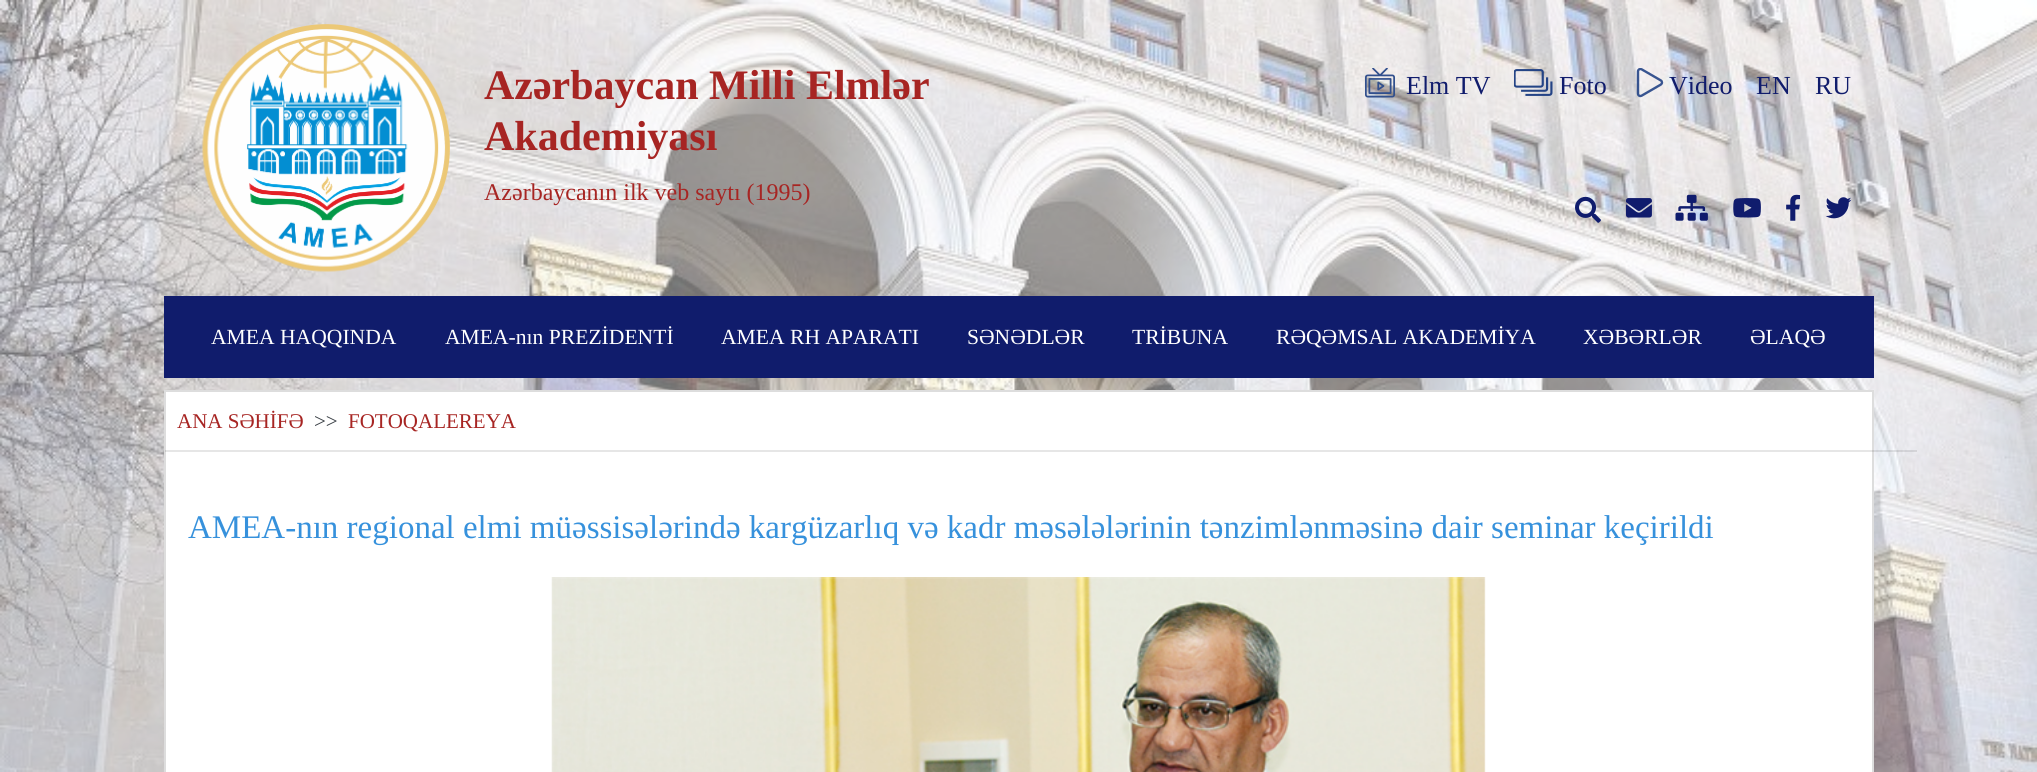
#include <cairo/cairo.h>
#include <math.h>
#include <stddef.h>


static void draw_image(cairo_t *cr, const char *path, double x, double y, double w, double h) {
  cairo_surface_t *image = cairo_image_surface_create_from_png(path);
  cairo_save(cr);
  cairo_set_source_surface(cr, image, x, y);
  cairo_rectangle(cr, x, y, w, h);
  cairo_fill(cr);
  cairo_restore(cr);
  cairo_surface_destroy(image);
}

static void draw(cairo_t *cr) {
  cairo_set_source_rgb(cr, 1, 1, 1);
  cairo_paint(cr);
  draw_image(cr, "images/1.png", 0, 0, 2037, 772);
  draw_image(cr, "images/2.png", 202, 24, 248, 248);
  draw_image(cr, "images/3.png", 1365, 68, 30, 30);
  draw_image(cr, "images/4.png", 1514, 69, 39, 27);
  draw_image(cr, "images/5.png", 1636, 68, 28, 30);
  draw_image(cr, "images/6.png", 1575, 196, 26, 27);
  draw_image(cr, "images/7.png", 1626, 198, 26, 20);
  draw_image(cr, "images/8.png", 1675, 194, 33, 27);
  draw_image(cr, "images/9.png", 1733, 198, 28, 20);
  draw_image(cr, "images/10.png", 1786, 194, 15, 27);
  draw_image(cr, "images/11.png", 1825, 197, 27, 22);
  cairo_set_source_rgb(cr, 16 / 255.0, 28 / 255.0, 108 / 255.0);
  cairo_rectangle(cr, 164, 296, 1710, 82);
  cairo_fill(cr);
  cairo_set_source_rgb(cr, 1, 1, 1);
  cairo_rectangle(cr, 165, 391, 1708, 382);
  cairo_fill_preserve(cr);
  cairo_set_source_rgb(cr, 221 / 255.0, 221 / 255.0, 221 / 255.0);
  cairo_stroke(cr);
  cairo_set_source_rgba(cr, 3 / 255.0, 3 / 255.0, 3 / 255.0, 0.1);
  cairo_rectangle(cr, 165, 450, 1752, 2);
  cairo_fill(cr);
  draw_image(cr, "images/12.png", 551, 577, 935, 195);
  cairo_select_font_face(cr, "Liberation Serif", CAIRO_FONT_SLANT_NORMAL, CAIRO_FONT_WEIGHT_BOLD);
  cairo_set_font_size(cr, 42);
  cairo_set_source_rgb(cr, 167 / 255.0, 37 / 255.0, 35 / 255.0);
  cairo_move_to(cr, 484, 99);
  cairo_show_text(cr, "Azərbaycan Milli Elmlər");
  cairo_move_to(cr, 484, 150);
  cairo_show_text(cr, "Akademiyası");
  cairo_select_font_face(cr, "Liberation Serif", CAIRO_FONT_SLANT_NORMAL, CAIRO_FONT_WEIGHT_NORMAL);
  cairo_set_font_size(cr, 24);
  cairo_move_to(cr, 484, 200);
  cairo_show_text(cr, "Azərbaycanın ilk veb saytı (1995)");
  cairo_set_font_size(cr, 26);
  cairo_set_source_rgb(cr, 16 / 255.0, 28 / 255.0, 108 / 255.0);
  cairo_move_to(cr, 1406, 94);
  cairo_show_text(cr, "Elm TV");
  cairo_move_to(cr, 1559, 94);
  cairo_show_text(cr, "Foto");
  cairo_move_to(cr, 1669, 94);
  cairo_show_text(cr, "Video");
  cairo_move_to(cr, 1756, 94);
  cairo_show_text(cr, "EN");
  cairo_move_to(cr, 1815, 94);
  cairo_show_text(cr, "RU");
  cairo_set_font_size(cr, 21.6);
  cairo_set_source_rgb(cr, 1, 1, 1);
  cairo_move_to(cr, 211, 344);
  cairo_show_text(cr, "AMEA HAQQINDA");
  cairo_move_to(cr, 445, 344);
  cairo_show_text(cr, "AMEA-nın PREZİDENTİ");
  cairo_move_to(cr, 721, 344);
  cairo_show_text(cr, "AMEA RH APARATI");
  cairo_move_to(cr, 967, 344);
  cairo_show_text(cr, "SƏNƏDLƏR");
  cairo_move_to(cr, 1132, 344);
  cairo_show_text(cr, "TRİBUNA");
  cairo_move_to(cr, 1276, 344);
  cairo_show_text(cr, "RƏQƏMSAL AKADEMİYA");
  cairo_move_to(cr, 1583, 344);
  cairo_show_text(cr, "XƏBƏRLƏR");
  cairo_move_to(cr, 1750, 344);
  cairo_show_text(cr, "ƏLAQƏ");
  cairo_set_font_size(cr, 21);
  cairo_set_source_rgb(cr, 167 / 255.0, 37 / 255.0, 35 / 255.0);
  cairo_move_to(cr, 177, 428);
  cairo_show_text(cr, "ANA SƏHİFƏ");
  cairo_set_source_rgb(cr, 54 / 255.0, 60 / 255.0, 66 / 255.0);
  cairo_move_to(cr, 314, 428);
  cairo_show_text(cr, ">>");
  cairo_set_source_rgb(cr, 167 / 255.0, 37 / 255.0, 35 / 255.0);
  cairo_move_to(cr, 348, 428);
  cairo_show_text(cr, "FOTOQALEREYA");
  cairo_set_font_size(cr, 33);
  cairo_set_source_rgb(cr, 54 / 255.0, 145 / 255.0, 220 / 255.0);
  cairo_move_to(cr, 188, 538);
  cairo_show_text(cr, "AMEA-nın regional elmi müəssisələrində kargüzarlıq və kadr məsələlərinin tənzimlənməsinə dair seminar keçirildi");
}

int main(void) {
  cairo_surface_t *surface = cairo_image_surface_create(CAIRO_FORMAT_RGB24, 2037, 772);
  cairo_t *cr = cairo_create(surface);
  cairo_font_options_t *options = cairo_font_options_create();
  cairo_font_options_set_hint_metrics(options, CAIRO_HINT_METRICS_OFF);
  cairo_font_options_set_hint_style(options, CAIRO_HINT_STYLE_NONE);
  cairo_set_font_options(cr, options);
  cairo_set_miter_limit(cr, 4);
  draw(cr);
  cairo_surface_write_to_png(surface, "out.png");
  cairo_font_options_destroy(options);
  cairo_destroy(cr);
  cairo_surface_destroy(surface);
  return 0;
}
